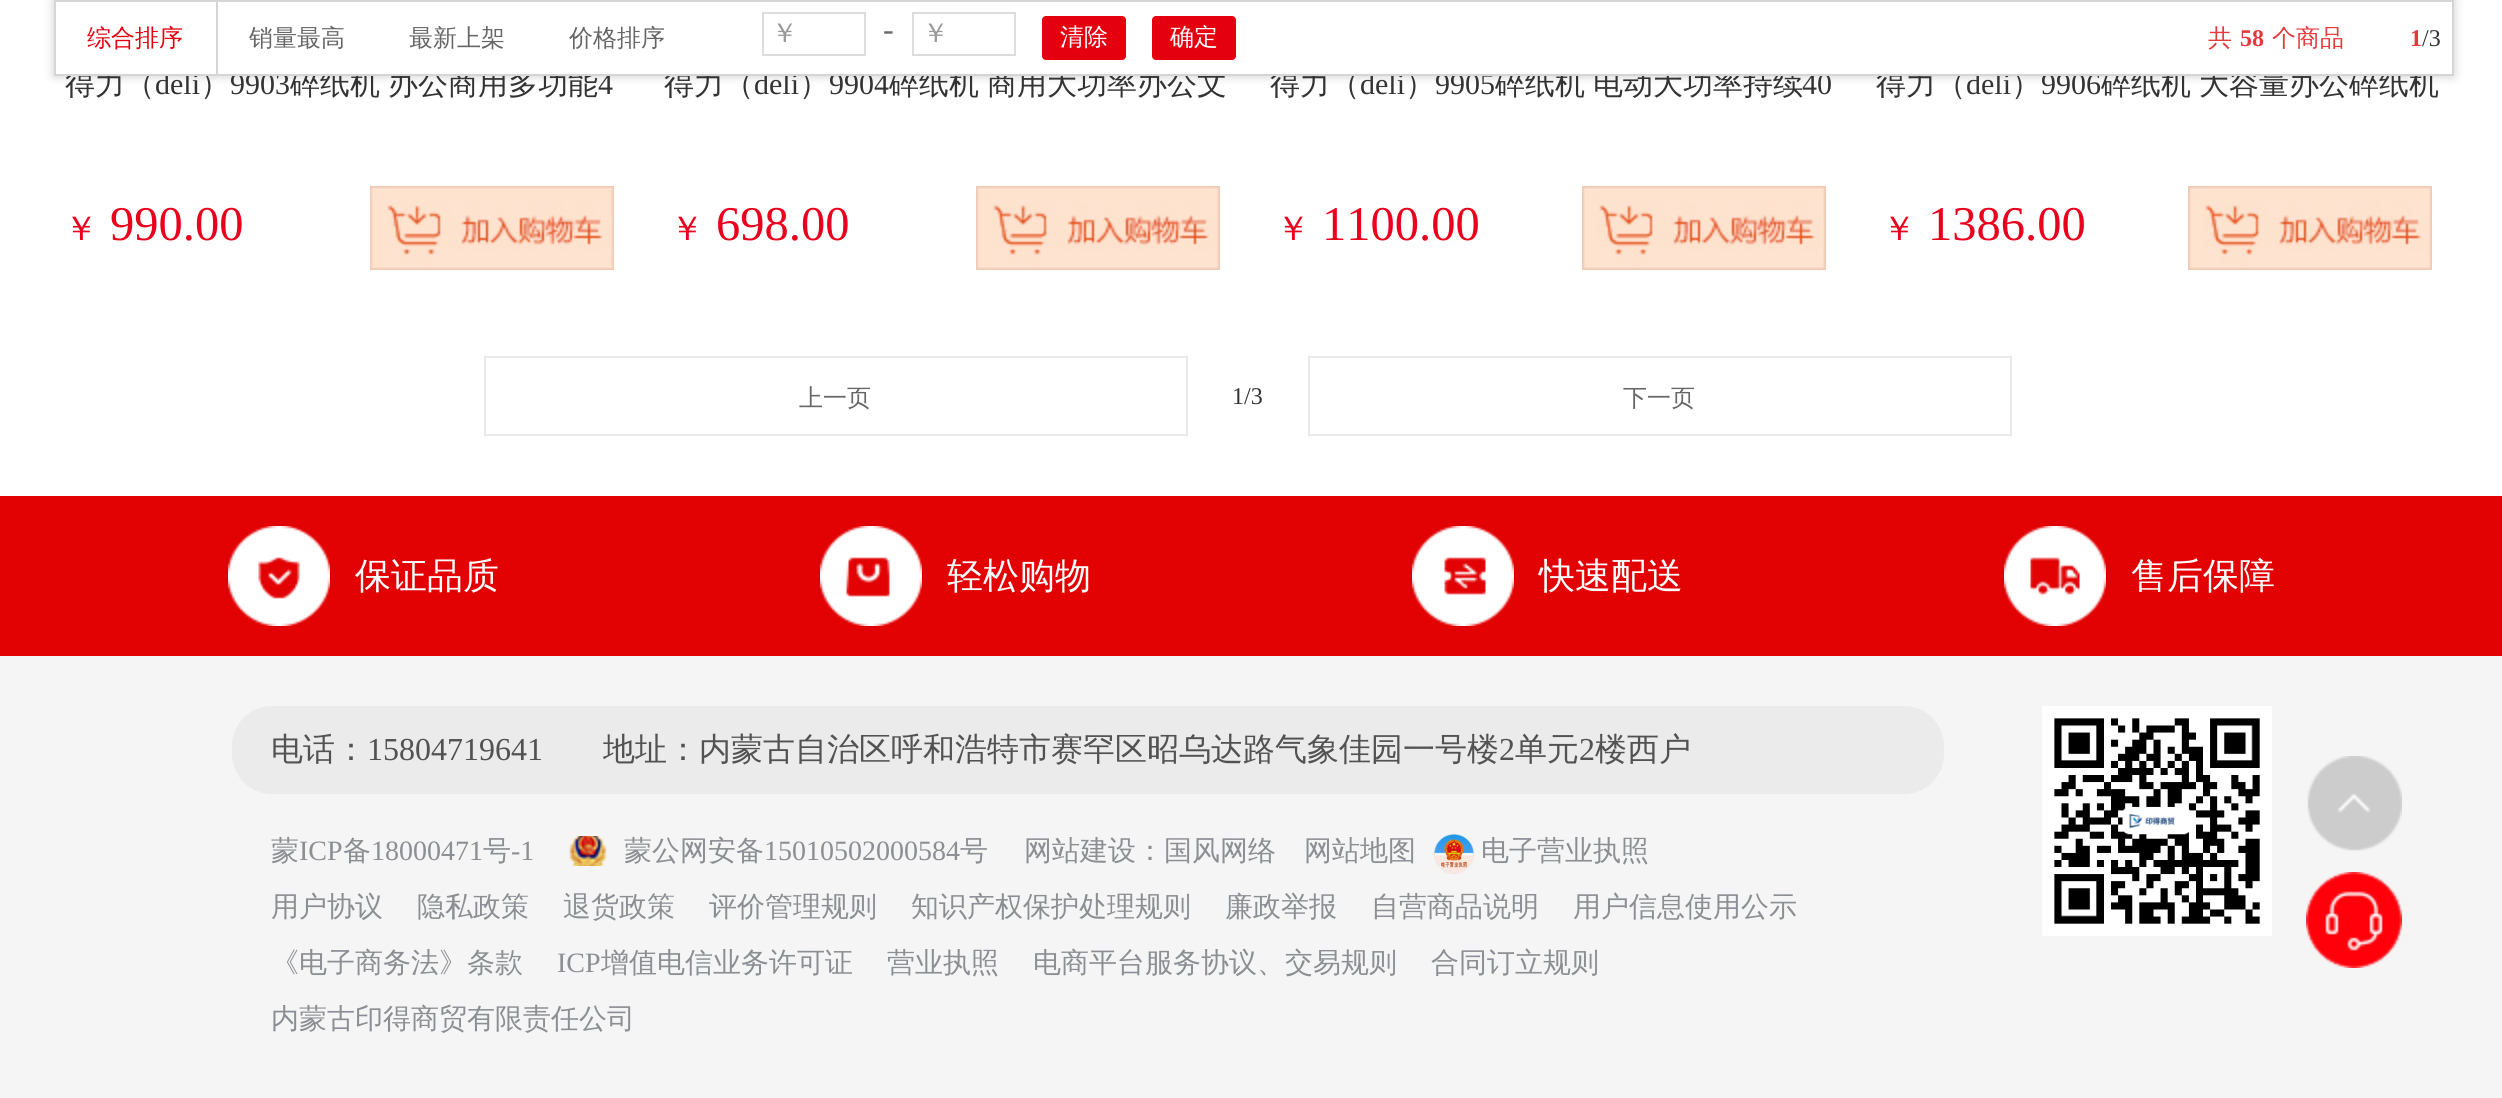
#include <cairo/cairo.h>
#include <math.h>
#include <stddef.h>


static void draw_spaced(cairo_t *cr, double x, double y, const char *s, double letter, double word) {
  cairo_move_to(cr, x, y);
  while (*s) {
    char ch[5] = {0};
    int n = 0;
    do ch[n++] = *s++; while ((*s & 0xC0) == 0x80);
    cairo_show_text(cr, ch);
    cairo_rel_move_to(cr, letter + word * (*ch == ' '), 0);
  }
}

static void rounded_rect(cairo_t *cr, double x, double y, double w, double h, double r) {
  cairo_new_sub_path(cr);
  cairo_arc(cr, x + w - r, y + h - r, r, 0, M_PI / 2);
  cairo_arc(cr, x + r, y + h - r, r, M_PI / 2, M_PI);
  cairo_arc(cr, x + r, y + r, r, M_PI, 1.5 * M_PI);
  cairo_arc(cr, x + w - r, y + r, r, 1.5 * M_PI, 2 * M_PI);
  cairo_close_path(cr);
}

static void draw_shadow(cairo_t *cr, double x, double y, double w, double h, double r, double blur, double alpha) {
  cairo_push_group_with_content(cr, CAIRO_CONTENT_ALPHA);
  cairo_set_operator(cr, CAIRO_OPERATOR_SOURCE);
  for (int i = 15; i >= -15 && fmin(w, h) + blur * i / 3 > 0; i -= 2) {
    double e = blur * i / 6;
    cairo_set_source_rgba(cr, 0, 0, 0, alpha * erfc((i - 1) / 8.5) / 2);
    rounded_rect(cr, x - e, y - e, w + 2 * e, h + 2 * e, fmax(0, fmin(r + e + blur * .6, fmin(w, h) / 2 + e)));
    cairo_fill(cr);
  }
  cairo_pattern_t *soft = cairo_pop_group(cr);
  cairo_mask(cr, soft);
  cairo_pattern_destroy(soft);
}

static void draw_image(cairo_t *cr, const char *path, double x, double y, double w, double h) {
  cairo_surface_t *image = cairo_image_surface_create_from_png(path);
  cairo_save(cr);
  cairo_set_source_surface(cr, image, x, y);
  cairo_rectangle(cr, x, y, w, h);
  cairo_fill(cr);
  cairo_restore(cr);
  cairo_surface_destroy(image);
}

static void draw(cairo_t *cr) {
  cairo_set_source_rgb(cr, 1, 1, 1);
  cairo_paint(cr);
  cairo_set_source_rgb(cr, 204 / 255.0, 204 / 255.0, 204 / 255.0);
  draw_shadow(cr, 54, 0, 2400, 76, 0, 5, 1);
  draw_image(cr, "images/1.png", 370, 186, 244, 84);
  draw_image(cr, "images/1.png", 976, 186, 244, 84);
  draw_image(cr, "images/1.png", 1582, 186, 244, 84);
  draw_image(cr, "images/1.png", 2188, 186, 244, 84);
  cairo_rectangle(cr, 485, 357, 702, 78);
  cairo_set_source_rgb(cr, 232 / 255.0, 232 / 255.0, 232 / 255.0);
  cairo_stroke(cr);
  cairo_rectangle(cr, 1309, 357, 702, 78);
  cairo_stroke(cr);
  cairo_set_source_rgb(cr, 226 / 255.0, 2 / 255.0, 4 / 255.0);
  cairo_rectangle(cr, 0, 496, 2502, 160);
  cairo_fill(cr);
  draw_image(cr, "images/2.png", 228, 526, 102, 100);
  draw_image(cr, "images/3.png", 820, 526, 102, 100);
  draw_image(cr, "images/4.png", 1412, 526, 102, 100);
  draw_image(cr, "images/5.png", 2004, 526, 102, 100);
  cairo_set_source_rgb(cr, 245 / 255.0, 245 / 255.0, 245 / 255.0);
  cairo_rectangle(cr, 0, 656, 2502, 442);
  cairo_fill(cr);
  cairo_set_source_rgb(cr, 235 / 255.0, 235 / 255.0, 235 / 255.0);
  rounded_rect(cr, 232, 706, 1712, 88, 40);
  cairo_fill(cr);
  draw_image(cr, "images/6.png", 569, 836, 38, 30);
  draw_image(cr, "images/7.png", 1434, 834, 40, 40);
  draw_image(cr, "images/8.png", 2042, 706, 230, 230);
  draw_image(cr, "images/9.png", 2307, 756, 95, 95);
  draw_image(cr, "images/10.png", 2306, 872, 96, 96);
  cairo_select_font_face(cr, "WenQuanYi Zen Hei Medium", CAIRO_FONT_SLANT_NORMAL, CAIRO_FONT_WEIGHT_NORMAL);
  cairo_set_font_size(cr, 30);
  cairo_set_source_rgb(cr, 51 / 255.0, 51 / 255.0, 51 / 255.0);
  cairo_move_to(cr, 65, 94);
  cairo_show_text(cr, "得力（");
  cairo_select_font_face(cr, "Liberation Serif", CAIRO_FONT_SLANT_NORMAL, CAIRO_FONT_WEIGHT_NORMAL);
  cairo_move_to(cr, 155, 94);
  cairo_show_text(cr, "deli");
  cairo_select_font_face(cr, "WenQuanYi Zen Hei Medium", CAIRO_FONT_SLANT_NORMAL, CAIRO_FONT_WEIGHT_NORMAL);
  cairo_move_to(cr, 200, 94);
  cairo_show_text(cr, "）");
  cairo_select_font_face(cr, "Liberation Serif", CAIRO_FONT_SLANT_NORMAL, CAIRO_FONT_WEIGHT_NORMAL);
  cairo_move_to(cr, 230, 94);
  cairo_show_text(cr, "9903");
  cairo_select_font_face(cr, "WenQuanYi Zen Hei Medium", CAIRO_FONT_SLANT_NORMAL, CAIRO_FONT_WEIGHT_NORMAL);
  draw_spaced(cr, 290, 94, "碎纸机 办公商用多功能", 0, -1);
  cairo_select_font_face(cr, "Liberation Serif", CAIRO_FONT_SLANT_NORMAL, CAIRO_FONT_WEIGHT_NORMAL);
  cairo_move_to(cr, 598, 94);
  cairo_show_text(cr, "4");
  cairo_select_font_face(cr, "WenQuanYi Zen Hei Medium", CAIRO_FONT_SLANT_NORMAL, CAIRO_FONT_WEIGHT_NORMAL);
  cairo_set_font_size(cr, 34);
  cairo_set_source_rgb(cr, 234 / 255.0, 0, 28 / 255.0);
  cairo_move_to(cr, 64, 240);
  cairo_show_text(cr, "￥");
  cairo_select_font_face(cr, "Liberation Serif", CAIRO_FONT_SLANT_NORMAL, CAIRO_FONT_WEIGHT_NORMAL);
  cairo_set_font_size(cr, 48.5);
  cairo_move_to(cr, 110, 240);
  cairo_show_text(cr, "990.00");
  cairo_select_font_face(cr, "WenQuanYi Zen Hei Medium", CAIRO_FONT_SLANT_NORMAL, CAIRO_FONT_WEIGHT_NORMAL);
  cairo_set_font_size(cr, 30);
  cairo_set_source_rgb(cr, 51 / 255.0, 51 / 255.0, 51 / 255.0);
  cairo_move_to(cr, 664, 94);
  cairo_show_text(cr, "得力（");
  cairo_select_font_face(cr, "Liberation Serif", CAIRO_FONT_SLANT_NORMAL, CAIRO_FONT_WEIGHT_NORMAL);
  cairo_move_to(cr, 754, 94);
  cairo_show_text(cr, "deli");
  cairo_select_font_face(cr, "WenQuanYi Zen Hei Medium", CAIRO_FONT_SLANT_NORMAL, CAIRO_FONT_WEIGHT_NORMAL);
  cairo_move_to(cr, 799, 94);
  cairo_show_text(cr, "）");
  cairo_select_font_face(cr, "Liberation Serif", CAIRO_FONT_SLANT_NORMAL, CAIRO_FONT_WEIGHT_NORMAL);
  cairo_move_to(cr, 829, 94);
  cairo_show_text(cr, "9904");
  cairo_select_font_face(cr, "WenQuanYi Zen Hei Medium", CAIRO_FONT_SLANT_NORMAL, CAIRO_FONT_WEIGHT_NORMAL);
  draw_spaced(cr, 889, 94, "碎纸机 商用大功率办公文", 0, -1);
  cairo_set_font_size(cr, 34);
  cairo_set_source_rgb(cr, 234 / 255.0, 0, 28 / 255.0);
  cairo_move_to(cr, 670, 240);
  cairo_show_text(cr, "￥");
  cairo_select_font_face(cr, "Liberation Serif", CAIRO_FONT_SLANT_NORMAL, CAIRO_FONT_WEIGHT_NORMAL);
  cairo_set_font_size(cr, 48.5);
  cairo_move_to(cr, 716, 240);
  cairo_show_text(cr, "698.00");
  cairo_select_font_face(cr, "WenQuanYi Zen Hei Medium", CAIRO_FONT_SLANT_NORMAL, CAIRO_FONT_WEIGHT_NORMAL);
  cairo_set_font_size(cr, 30);
  cairo_set_source_rgb(cr, 51 / 255.0, 51 / 255.0, 51 / 255.0);
  cairo_move_to(cr, 1270, 94);
  cairo_show_text(cr, "得力（");
  cairo_select_font_face(cr, "Liberation Serif", CAIRO_FONT_SLANT_NORMAL, CAIRO_FONT_WEIGHT_NORMAL);
  cairo_move_to(cr, 1360, 94);
  cairo_show_text(cr, "deli");
  cairo_select_font_face(cr, "WenQuanYi Zen Hei Medium", CAIRO_FONT_SLANT_NORMAL, CAIRO_FONT_WEIGHT_NORMAL);
  cairo_move_to(cr, 1405, 94);
  cairo_show_text(cr, "）");
  cairo_select_font_face(cr, "Liberation Serif", CAIRO_FONT_SLANT_NORMAL, CAIRO_FONT_WEIGHT_NORMAL);
  cairo_move_to(cr, 1435, 94);
  cairo_show_text(cr, "9905");
  cairo_select_font_face(cr, "WenQuanYi Zen Hei Medium", CAIRO_FONT_SLANT_NORMAL, CAIRO_FONT_WEIGHT_NORMAL);
  draw_spaced(cr, 1495, 94, "碎纸机 电动大功率持续", 0, -1);
  cairo_select_font_face(cr, "Liberation Serif", CAIRO_FONT_SLANT_NORMAL, CAIRO_FONT_WEIGHT_NORMAL);
  cairo_move_to(cr, 1802, 94);
  cairo_show_text(cr, "40");
  cairo_select_font_face(cr, "WenQuanYi Zen Hei Medium", CAIRO_FONT_SLANT_NORMAL, CAIRO_FONT_WEIGHT_NORMAL);
  cairo_set_font_size(cr, 34);
  cairo_set_source_rgb(cr, 234 / 255.0, 0, 28 / 255.0);
  cairo_move_to(cr, 1276, 240);
  cairo_show_text(cr, "￥");
  cairo_select_font_face(cr, "Liberation Serif", CAIRO_FONT_SLANT_NORMAL, CAIRO_FONT_WEIGHT_NORMAL);
  cairo_set_font_size(cr, 48.5);
  cairo_move_to(cr, 1322, 240);
  cairo_show_text(cr, "1100.00");
  cairo_select_font_face(cr, "WenQuanYi Zen Hei Medium", CAIRO_FONT_SLANT_NORMAL, CAIRO_FONT_WEIGHT_NORMAL);
  cairo_set_font_size(cr, 30);
  cairo_set_source_rgb(cr, 51 / 255.0, 51 / 255.0, 51 / 255.0);
  cairo_move_to(cr, 1876, 94);
  cairo_show_text(cr, "得力（");
  cairo_select_font_face(cr, "Liberation Serif", CAIRO_FONT_SLANT_NORMAL, CAIRO_FONT_WEIGHT_NORMAL);
  cairo_move_to(cr, 1966, 94);
  cairo_show_text(cr, "deli");
  cairo_select_font_face(cr, "WenQuanYi Zen Hei Medium", CAIRO_FONT_SLANT_NORMAL, CAIRO_FONT_WEIGHT_NORMAL);
  cairo_move_to(cr, 2011, 94);
  cairo_show_text(cr, "）");
  cairo_select_font_face(cr, "Liberation Serif", CAIRO_FONT_SLANT_NORMAL, CAIRO_FONT_WEIGHT_NORMAL);
  cairo_move_to(cr, 2041, 94);
  cairo_show_text(cr, "9906");
  cairo_select_font_face(cr, "WenQuanYi Zen Hei Medium", CAIRO_FONT_SLANT_NORMAL, CAIRO_FONT_WEIGHT_NORMAL);
  draw_spaced(cr, 2101, 94, "碎纸机 大容量办公碎纸机", 0, -1);
  cairo_set_source_rgb(cr, 1, 1, 1);
  cairo_rectangle(cr, 218, 2, 2234, 72);
  cairo_fill(cr);
  cairo_rectangle(cr, 55, 1, 2398, 74);
  cairo_set_source_rgb(cr, 213 / 255.0, 213 / 255.0, 213 / 255.0);
  cairo_stroke(cr);
  cairo_set_font_size(cr, 24);
  cairo_set_source_rgb(cr, 102 / 255.0, 102 / 255.0, 102 / 255.0);
  cairo_move_to(cr, 569, 46);
  cairo_show_text(cr, "价格排序");
  cairo_move_to(cr, 409, 46);
  cairo_show_text(cr, "最新上架");
  cairo_move_to(cr, 249, 46);
  cairo_show_text(cr, "销量最高");
  cairo_set_source_rgb(cr, 1, 1, 1);
  cairo_rectangle(cr, 56, 2, 160, 72);
  cairo_fill(cr);
  cairo_set_source_rgb(cr, 228 / 255.0, 0, 15 / 255.0);
  cairo_move_to(cr, 87, 46);
  cairo_show_text(cr, "综合排序");
  cairo_set_source_rgb(cr, 213 / 255.0, 213 / 255.0, 213 / 255.0);
  cairo_rectangle(cr, 216, 2, 2, 72);
  cairo_fill(cr);
  cairo_set_source_rgb(cr, 228 / 255.0, 0, 15 / 255.0);
  rounded_rect(cr, 1152, 16, 84, 44, 4);
  cairo_fill(cr);
  cairo_set_source_rgb(cr, 1, 1, 1);
  cairo_move_to(cr, 1170, 45);
  cairo_show_text(cr, "确定");
  cairo_set_source_rgb(cr, 228 / 255.0, 0, 15 / 255.0);
  rounded_rect(cr, 1042, 16, 84, 44, 4);
  cairo_fill(cr);
  cairo_set_source_rgb(cr, 1, 1, 1);
  cairo_move_to(cr, 1060, 45);
  cairo_show_text(cr, "清除");
  cairo_rectangle(cr, 913, 13, 102, 42);
  cairo_set_source_rgb(cr, 221 / 255.0, 221 / 255.0, 221 / 255.0);
  cairo_stroke(cr);
  cairo_set_font_size(cr, 27);
  cairo_set_source_rgb(cr, 153 / 255.0, 153 / 255.0, 153 / 255.0);
  cairo_move_to(cr, 922, 42);
  cairo_show_text(cr, "￥");
  cairo_select_font_face(cr, "Liberation Serif", CAIRO_FONT_SLANT_NORMAL, CAIRO_FONT_WEIGHT_NORMAL);
  cairo_set_font_size(cr, 32);
  cairo_set_source_rgb(cr, 102 / 255.0, 102 / 255.0, 102 / 255.0);
  cairo_move_to(cr, 883, 40);
  cairo_show_text(cr, "-");
  cairo_rectangle(cr, 763, 13, 102, 42);
  cairo_set_source_rgb(cr, 221 / 255.0, 221 / 255.0, 221 / 255.0);
  cairo_stroke(cr);
  cairo_select_font_face(cr, "WenQuanYi Zen Hei Medium", CAIRO_FONT_SLANT_NORMAL, CAIRO_FONT_WEIGHT_NORMAL);
  cairo_set_font_size(cr, 27);
  cairo_set_source_rgb(cr, 153 / 255.0, 153 / 255.0, 153 / 255.0);
  cairo_move_to(cr, 771, 42);
  cairo_show_text(cr, "￥");
  cairo_set_font_size(cr, 24);
  cairo_set_source_rgb(cr, 228 / 255.0, 57 / 255.0, 60 / 255.0);
  cairo_move_to(cr, 2272, 46);
  cairo_show_text(cr, "个商品");
  cairo_select_font_face(cr, "Liberation Serif", CAIRO_FONT_SLANT_NORMAL, CAIRO_FONT_WEIGHT_BOLD);
  cairo_move_to(cr, 2240, 46);
  cairo_show_text(cr, "58");
  cairo_select_font_face(cr, "WenQuanYi Zen Hei Medium", CAIRO_FONT_SLANT_NORMAL, CAIRO_FONT_WEIGHT_NORMAL);
  cairo_move_to(cr, 2208, 46);
  cairo_show_text(cr, "共");
  cairo_select_font_face(cr, "Liberation Serif", CAIRO_FONT_SLANT_NORMAL, CAIRO_FONT_WEIGHT_NORMAL);
  cairo_set_source_rgb(cr, 51 / 255.0, 51 / 255.0, 51 / 255.0);
  cairo_move_to(cr, 2422, 46);
  cairo_show_text(cr, "/3");
  cairo_select_font_face(cr, "Liberation Serif", CAIRO_FONT_SLANT_NORMAL, CAIRO_FONT_WEIGHT_BOLD);
  cairo_set_source_rgb(cr, 228 / 255.0, 57 / 255.0, 60 / 255.0);
  cairo_move_to(cr, 2410, 46);
  cairo_show_text(cr, "1");
  cairo_select_font_face(cr, "WenQuanYi Zen Hei Medium", CAIRO_FONT_SLANT_NORMAL, CAIRO_FONT_WEIGHT_NORMAL);
  cairo_set_font_size(cr, 34);
  cairo_set_source_rgb(cr, 234 / 255.0, 0, 28 / 255.0);
  cairo_move_to(cr, 1882, 240);
  cairo_show_text(cr, "￥");
  cairo_select_font_face(cr, "Liberation Serif", CAIRO_FONT_SLANT_NORMAL, CAIRO_FONT_WEIGHT_NORMAL);
  cairo_set_font_size(cr, 48.5);
  cairo_move_to(cr, 1928, 240);
  cairo_show_text(cr, "1386.00");
  cairo_select_font_face(cr, "WenQuanYi Zen Hei Medium", CAIRO_FONT_SLANT_NORMAL, CAIRO_FONT_WEIGHT_NORMAL);
  cairo_set_font_size(cr, 24);
  cairo_set_source_rgb(cr, 102 / 255.0, 102 / 255.0, 102 / 255.0);
  cairo_move_to(cr, 799, 406);
  cairo_show_text(cr, "上一页");
  cairo_select_font_face(cr, "Liberation Serif", CAIRO_FONT_SLANT_NORMAL, CAIRO_FONT_WEIGHT_NORMAL);
  cairo_set_source_rgb(cr, 51 / 255.0, 51 / 255.0, 51 / 255.0);
  cairo_move_to(cr, 1232, 404);
  cairo_show_text(cr, "1/3");
  cairo_select_font_face(cr, "WenQuanYi Zen Hei Medium", CAIRO_FONT_SLANT_NORMAL, CAIRO_FONT_WEIGHT_NORMAL);
  cairo_set_source_rgb(cr, 102 / 255.0, 102 / 255.0, 102 / 255.0);
  cairo_move_to(cr, 1623, 406);
  cairo_show_text(cr, "下一页");
  cairo_set_font_size(cr, 36);
  cairo_set_source_rgb(cr, 1, 1, 1);
  cairo_move_to(cr, 355, 588);
  cairo_show_text(cr, "保证品质");
  cairo_move_to(cr, 947, 588);
  cairo_show_text(cr, "轻松购物");
  cairo_move_to(cr, 1539, 588);
  cairo_show_text(cr, "快速配送");
  cairo_move_to(cr, 2131, 588);
  cairo_show_text(cr, "售后保障");
  cairo_set_font_size(cr, 32);
  cairo_set_source_rgb(cr, 82 / 255.0, 82 / 255.0, 82 / 255.0);
  cairo_move_to(cr, 271, 760);
  cairo_show_text(cr, "电话：");
  cairo_select_font_face(cr, "Liberation Serif", CAIRO_FONT_SLANT_NORMAL, CAIRO_FONT_WEIGHT_NORMAL);
  cairo_move_to(cr, 367, 760);
  cairo_show_text(cr, "15804719641");
  cairo_select_font_face(cr, "WenQuanYi Zen Hei Medium", CAIRO_FONT_SLANT_NORMAL, CAIRO_FONT_WEIGHT_NORMAL);
  cairo_move_to(cr, 603, 760);
  cairo_show_text(cr, "地址：内蒙古自治区呼和浩特市赛罕区昭乌达路气象佳园一号楼");
  cairo_select_font_face(cr, "Liberation Serif", CAIRO_FONT_SLANT_NORMAL, CAIRO_FONT_WEIGHT_NORMAL);
  cairo_move_to(cr, 1499, 760);
  cairo_show_text(cr, "2");
  cairo_select_font_face(cr, "WenQuanYi Zen Hei Medium", CAIRO_FONT_SLANT_NORMAL, CAIRO_FONT_WEIGHT_NORMAL);
  cairo_move_to(cr, 1515, 760);
  cairo_show_text(cr, "单元");
  cairo_select_font_face(cr, "Liberation Serif", CAIRO_FONT_SLANT_NORMAL, CAIRO_FONT_WEIGHT_NORMAL);
  cairo_move_to(cr, 1579, 760);
  cairo_show_text(cr, "2");
  cairo_select_font_face(cr, "WenQuanYi Zen Hei Medium", CAIRO_FONT_SLANT_NORMAL, CAIRO_FONT_WEIGHT_NORMAL);
  cairo_move_to(cr, 1595, 760);
  cairo_show_text(cr, "楼西户");
  cairo_set_font_size(cr, 28);
  cairo_set_source_rgb(cr, 139 / 255.0, 142 / 255.0, 147 / 255.0);
  cairo_move_to(cr, 271, 860);
  cairo_show_text(cr, "蒙");
  cairo_select_font_face(cr, "Liberation Serif", CAIRO_FONT_SLANT_NORMAL, CAIRO_FONT_WEIGHT_NORMAL);
  cairo_move_to(cr, 299, 860);
  cairo_show_text(cr, "ICP");
  cairo_select_font_face(cr, "WenQuanYi Zen Hei Medium", CAIRO_FONT_SLANT_NORMAL, CAIRO_FONT_WEIGHT_NORMAL);
  cairo_move_to(cr, 343, 860);
  cairo_show_text(cr, "备");
  cairo_select_font_face(cr, "Liberation Serif", CAIRO_FONT_SLANT_NORMAL, CAIRO_FONT_WEIGHT_NORMAL);
  cairo_move_to(cr, 371, 860);
  cairo_show_text(cr, "18000471");
  cairo_select_font_face(cr, "WenQuanYi Zen Hei Medium", CAIRO_FONT_SLANT_NORMAL, CAIRO_FONT_WEIGHT_NORMAL);
  cairo_move_to(cr, 483, 860);
  cairo_show_text(cr, "号");
  cairo_select_font_face(cr, "Liberation Serif", CAIRO_FONT_SLANT_NORMAL, CAIRO_FONT_WEIGHT_NORMAL);
  cairo_move_to(cr, 511, 860);
  cairo_show_text(cr, "-1");
  cairo_select_font_face(cr, "WenQuanYi Zen Hei Medium", CAIRO_FONT_SLANT_NORMAL, CAIRO_FONT_WEIGHT_NORMAL);
  cairo_move_to(cr, 624, 860);
  cairo_show_text(cr, "蒙公网安备");
  cairo_select_font_face(cr, "Liberation Serif", CAIRO_FONT_SLANT_NORMAL, CAIRO_FONT_WEIGHT_NORMAL);
  cairo_move_to(cr, 764, 860);
  cairo_show_text(cr, "15010502000584");
  cairo_select_font_face(cr, "WenQuanYi Zen Hei Medium", CAIRO_FONT_SLANT_NORMAL, CAIRO_FONT_WEIGHT_NORMAL);
  cairo_move_to(cr, 960, 860);
  cairo_show_text(cr, "号");
  cairo_move_to(cr, 1024, 860);
  cairo_show_text(cr, "网站建设：国风网络");
  cairo_move_to(cr, 1304, 860);
  cairo_show_text(cr, "网站地图");
  cairo_move_to(cr, 1481, 860);
  cairo_show_text(cr, "电子营业执照");
  cairo_move_to(cr, 271, 916);
  cairo_show_text(cr, "用户协议");
  cairo_move_to(cr, 417, 916);
  cairo_show_text(cr, "隐私政策");
  cairo_move_to(cr, 563, 916);
  cairo_show_text(cr, "退货政策");
  cairo_move_to(cr, 709, 916);
  cairo_show_text(cr, "评价管理规则");
  cairo_move_to(cr, 911, 916);
  cairo_show_text(cr, "知识产权保护处理规则");
  cairo_move_to(cr, 1225, 916);
  cairo_show_text(cr, "廉政举报");
  cairo_move_to(cr, 1371, 916);
  cairo_show_text(cr, "自营商品说明");
  cairo_move_to(cr, 1573, 916);
  cairo_show_text(cr, "用户信息使用公示");
  cairo_move_to(cr, 271, 972);
  cairo_show_text(cr, "《电子商务法》条款");
  cairo_select_font_face(cr, "Liberation Serif", CAIRO_FONT_SLANT_NORMAL, CAIRO_FONT_WEIGHT_NORMAL);
  cairo_move_to(cr, 557, 972);
  cairo_show_text(cr, "ICP");
  cairo_select_font_face(cr, "WenQuanYi Zen Hei Medium", CAIRO_FONT_SLANT_NORMAL, CAIRO_FONT_WEIGHT_NORMAL);
  cairo_move_to(cr, 601, 972);
  cairo_show_text(cr, "增值电信业务许可证");
  cairo_move_to(cr, 887, 972);
  cairo_show_text(cr, "营业执照");
  cairo_move_to(cr, 1033, 972);
  cairo_show_text(cr, "电商平台服务协议、交易规则");
  cairo_move_to(cr, 1431, 972);
  cairo_show_text(cr, "合同订立规则");
  cairo_move_to(cr, 271, 1028);
  cairo_show_text(cr, "内蒙古印得商贸有限责任公司");
}

int main(void) {
  cairo_surface_t *surface = cairo_image_surface_create(CAIRO_FORMAT_RGB24, 2502, 1098);
  cairo_t *cr = cairo_create(surface);
  cairo_font_options_t *options = cairo_font_options_create();
  cairo_font_options_set_hint_metrics(options, CAIRO_HINT_METRICS_OFF);
  cairo_font_options_set_hint_style(options, CAIRO_HINT_STYLE_NONE);
  cairo_set_font_options(cr, options);
  cairo_set_miter_limit(cr, 4);
  draw(cr);
  cairo_surface_write_to_png(surface, "out.png");
  cairo_font_options_destroy(options);
  cairo_destroy(cr);
  cairo_surface_destroy(surface);
  return 0;
}
